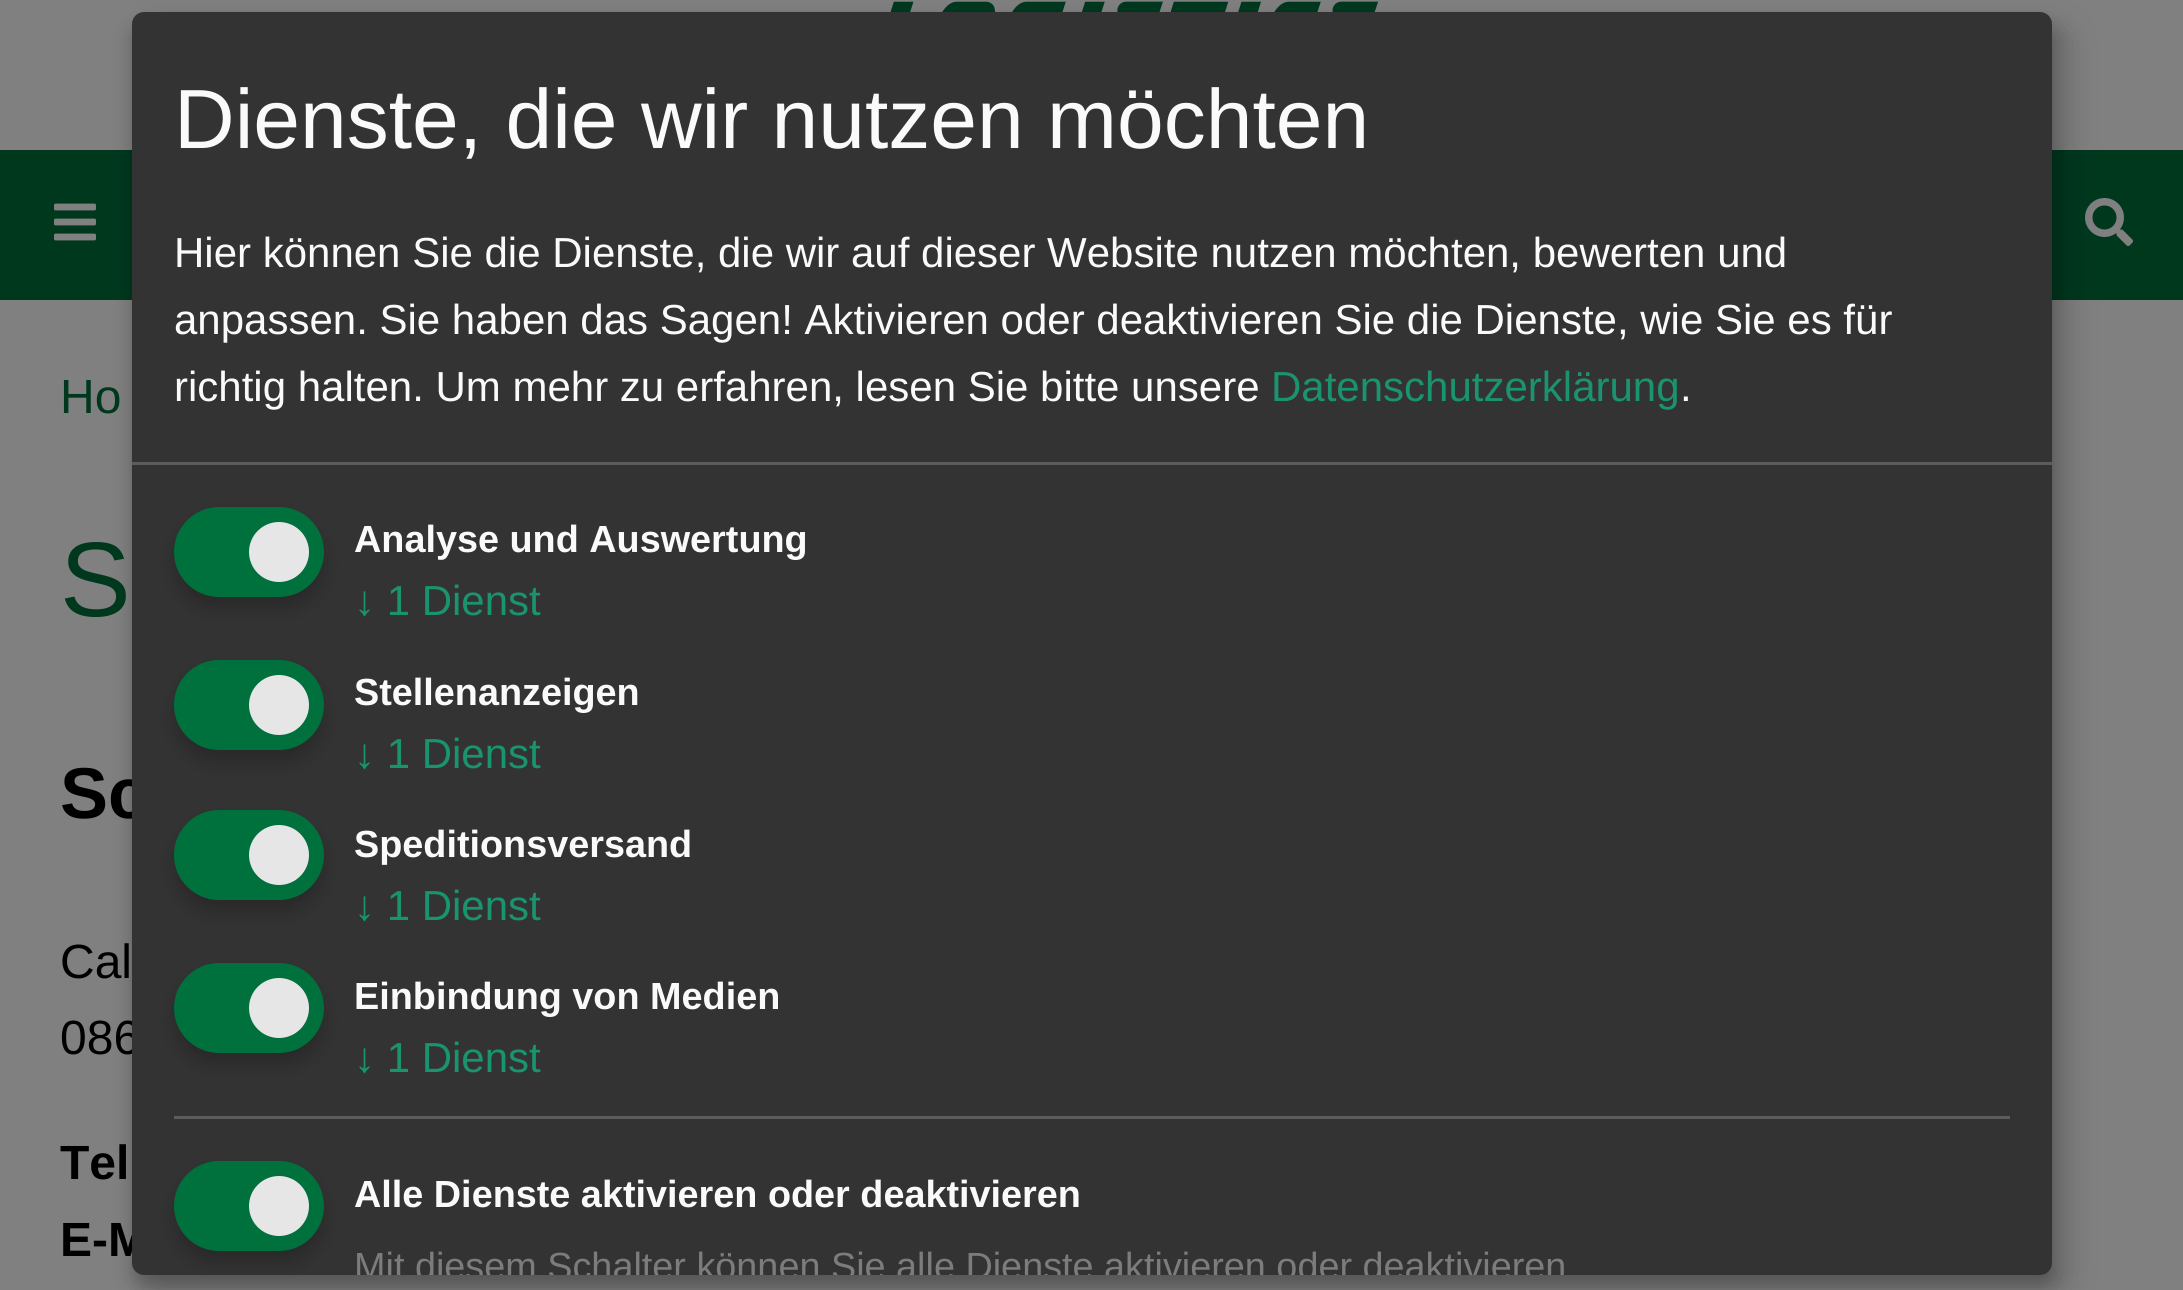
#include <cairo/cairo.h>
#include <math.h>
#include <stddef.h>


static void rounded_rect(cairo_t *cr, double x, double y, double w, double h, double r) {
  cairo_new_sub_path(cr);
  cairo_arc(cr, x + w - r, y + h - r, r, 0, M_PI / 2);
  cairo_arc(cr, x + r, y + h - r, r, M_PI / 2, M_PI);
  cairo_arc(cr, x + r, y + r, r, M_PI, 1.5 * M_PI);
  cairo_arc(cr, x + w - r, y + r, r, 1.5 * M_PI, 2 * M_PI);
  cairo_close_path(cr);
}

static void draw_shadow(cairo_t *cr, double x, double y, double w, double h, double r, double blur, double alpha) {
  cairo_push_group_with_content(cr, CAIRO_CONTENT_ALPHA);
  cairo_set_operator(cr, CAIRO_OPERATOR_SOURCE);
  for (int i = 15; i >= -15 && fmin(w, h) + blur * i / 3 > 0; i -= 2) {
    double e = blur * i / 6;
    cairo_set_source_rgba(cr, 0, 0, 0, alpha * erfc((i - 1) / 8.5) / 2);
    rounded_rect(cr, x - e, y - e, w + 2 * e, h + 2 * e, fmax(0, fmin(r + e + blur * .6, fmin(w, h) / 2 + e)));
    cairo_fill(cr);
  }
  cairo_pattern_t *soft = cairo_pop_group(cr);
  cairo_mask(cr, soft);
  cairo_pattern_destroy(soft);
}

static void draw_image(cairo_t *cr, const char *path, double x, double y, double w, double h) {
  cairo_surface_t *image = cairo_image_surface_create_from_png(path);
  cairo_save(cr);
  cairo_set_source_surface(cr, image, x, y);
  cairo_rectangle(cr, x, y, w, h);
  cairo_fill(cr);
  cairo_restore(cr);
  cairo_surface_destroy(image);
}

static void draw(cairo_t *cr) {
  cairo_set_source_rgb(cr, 128 / 255.0, 128 / 255.0, 128 / 255.0);
  cairo_paint(cr);
  draw_image(cr, "images/1.png", 890, 1, 489, 11);
  cairo_set_source_rgb(cr, 0, 56 / 255.0, 30 / 255.0);
  cairo_rectangle(cr, 0, 150, 132, 150);
  cairo_fill(cr);
  cairo_rectangle(cr, 2052, 150, 131, 150);
  cairo_fill(cr);
  draw_image(cr, "images/3.png", 2085, 198, 48, 48);
  cairo_set_source_rgb(cr, 0, 0, 0);
  draw_shadow(cr, 147, 27, 1920, 1263, 12, 15, 0.19);
  draw_shadow(cr, 132, 24, 1920, 1263, 12, 9, 0.2);
  draw_image(cr, "images/2.png", 54, 203, 42, 38);
  cairo_select_font_face(cr, "Liberation Sans", CAIRO_FONT_SLANT_NORMAL, CAIRO_FONT_WEIGHT_NORMAL);
  cairo_set_font_size(cr, 48);
  cairo_set_source_rgb(cr, 0, 56 / 255.0, 30 / 255.0);
  cairo_move_to(cr, 60, 413);
  cairo_show_text(cr, "Ho");
  cairo_set_font_size(cr, 106);
  cairo_move_to(cr, 60, 616);
  cairo_show_text(cr, "S");
  cairo_select_font_face(cr, "Liberation Sans", CAIRO_FONT_SLANT_NORMAL, CAIRO_FONT_WEIGHT_BOLD);
  cairo_set_font_size(cr, 72);
  cairo_set_source_rgb(cr, 0, 0, 0);
  cairo_move_to(cr, 60, 818);
  cairo_show_text(cr, "Sc");
  cairo_select_font_face(cr, "Liberation Sans", CAIRO_FONT_SLANT_NORMAL, CAIRO_FONT_WEIGHT_NORMAL);
  cairo_set_font_size(cr, 48);
  cairo_move_to(cr, 60, 978);
  cairo_show_text(cr, "Cal");
  cairo_move_to(cr, 60, 1054);
  cairo_show_text(cr, "086");
  cairo_select_font_face(cr, "Liberation Sans", CAIRO_FONT_SLANT_NORMAL, CAIRO_FONT_WEIGHT_BOLD);
  cairo_move_to(cr, 60, 1179);
  cairo_show_text(cr, "Tel");
  cairo_move_to(cr, 60, 1256);
  cairo_show_text(cr, "E-M");
  cairo_set_source_rgb(cr, 51 / 255.0, 51 / 255.0, 51 / 255.0);
  rounded_rect(cr, 132, 12, 1920, 1263, 12);
  cairo_fill(cr);
  cairo_set_source_rgb(cr, 0, 0, 0);
  draw_shadow(cr, 174, 1173, 150, 90, 45, 9, 0.2);
  cairo_set_source_rgb(cr, 0, 112 / 255.0, 60 / 255.0);
  rounded_rect(cr, 174, 1161, 150, 90, 45);
  cairo_fill(cr);
  cairo_set_source_rgb(cr, 230 / 255.0, 230 / 255.0, 230 / 255.0);
  cairo_arc(cr, 279, 1206, 30, 0, 2 * M_PI);
  cairo_fill(cr);
  cairo_save(cr);
  rounded_rect(cr, 132, 12, 1920, 1263, 12);
  cairo_clip(cr);
  cairo_select_font_face(cr, "Liberation Sans", CAIRO_FONT_SLANT_NORMAL, CAIRO_FONT_WEIGHT_NORMAL);
  cairo_set_font_size(cr, 37.8);
  cairo_set_source_rgb(cr, 124 / 255.0, 124 / 255.0, 124 / 255.0);
  cairo_move_to(cr, 354, 1279);
  cairo_show_text(cr, "Mit diesem Schalter können Sie alle Dienste aktivieren oder deaktivieren");
  cairo_restore(cr);
  cairo_set_font_size(cr, 37.8);
  cairo_set_source_rgb(cr, 250 / 255.0, 250 / 255.0, 250 / 255.0);
  cairo_move_to(cr, 354, 1207);
  cairo_show_text(cr, "Alle Dienste aktivieren oder deaktivieren");
  cairo_set_source_rgb(cr, 92 / 255.0, 92 / 255.0, 92 / 255.0);
  cairo_rectangle(cr, 174, 1116, 1836, 3);
  cairo_fill(cr);
  cairo_set_source_rgb(cr, 0, 0, 0);
  draw_shadow(cr, 174, 975, 150, 90, 45, 9, 0.2);
  cairo_set_source_rgb(cr, 0, 112 / 255.0, 60 / 255.0);
  rounded_rect(cr, 174, 963, 150, 90, 45);
  cairo_fill(cr);
  cairo_set_source_rgb(cr, 230 / 255.0, 230 / 255.0, 230 / 255.0);
  cairo_arc(cr, 279, 1008, 30, 0, 2 * M_PI);
  cairo_fill(cr);
  cairo_select_font_face(cr, "Liberation Sans", CAIRO_FONT_SLANT_NORMAL, CAIRO_FONT_WEIGHT_NORMAL);
  cairo_set_font_size(cr, 42);
  cairo_set_source_rgb(cr, 26 / 255.0, 147 / 255.0, 111 / 255.0);
  cairo_move_to(cr, 354, 1072);
  cairo_show_text(cr, "↓ 1 Dienst");
  cairo_select_font_face(cr, "Liberation Sans", CAIRO_FONT_SLANT_NORMAL, CAIRO_FONT_WEIGHT_BOLD);
  cairo_set_font_size(cr, 37.8);
  cairo_set_source_rgb(cr, 250 / 255.0, 250 / 255.0, 250 / 255.0);
  cairo_move_to(cr, 354, 1009);
  cairo_show_text(cr, "Einbindung von Medien");
  cairo_set_source_rgb(cr, 0, 0, 0);
  draw_shadow(cr, 174, 822, 150, 90, 45, 9, 0.2);
  cairo_set_source_rgb(cr, 0, 112 / 255.0, 60 / 255.0);
  rounded_rect(cr, 174, 810, 150, 90, 45);
  cairo_fill(cr);
  cairo_set_source_rgb(cr, 230 / 255.0, 230 / 255.0, 230 / 255.0);
  cairo_arc(cr, 279, 855, 30, 0, 2 * M_PI);
  cairo_fill(cr);
  cairo_select_font_face(cr, "Liberation Sans", CAIRO_FONT_SLANT_NORMAL, CAIRO_FONT_WEIGHT_NORMAL);
  cairo_set_font_size(cr, 42);
  cairo_set_source_rgb(cr, 26 / 255.0, 147 / 255.0, 111 / 255.0);
  cairo_move_to(cr, 354, 920);
  cairo_show_text(cr, "↓ 1 Dienst");
  cairo_select_font_face(cr, "Liberation Sans", CAIRO_FONT_SLANT_NORMAL, CAIRO_FONT_WEIGHT_BOLD);
  cairo_set_font_size(cr, 37.8);
  cairo_set_source_rgb(cr, 250 / 255.0, 250 / 255.0, 250 / 255.0);
  cairo_move_to(cr, 354, 857);
  cairo_show_text(cr, "Speditionsversand");
  cairo_set_source_rgb(cr, 0, 0, 0);
  draw_shadow(cr, 174, 672, 150, 90, 45, 9, 0.2);
  cairo_set_source_rgb(cr, 0, 112 / 255.0, 60 / 255.0);
  rounded_rect(cr, 174, 660, 150, 90, 45);
  cairo_fill(cr);
  cairo_set_source_rgb(cr, 230 / 255.0, 230 / 255.0, 230 / 255.0);
  cairo_arc(cr, 279, 705, 30, 0, 2 * M_PI);
  cairo_fill(cr);
  cairo_select_font_face(cr, "Liberation Sans", CAIRO_FONT_SLANT_NORMAL, CAIRO_FONT_WEIGHT_NORMAL);
  cairo_set_font_size(cr, 42);
  cairo_set_source_rgb(cr, 26 / 255.0, 147 / 255.0, 111 / 255.0);
  cairo_move_to(cr, 354, 768);
  cairo_show_text(cr, "↓ 1 Dienst");
  cairo_select_font_face(cr, "Liberation Sans", CAIRO_FONT_SLANT_NORMAL, CAIRO_FONT_WEIGHT_BOLD);
  cairo_set_font_size(cr, 37.8);
  cairo_set_source_rgb(cr, 250 / 255.0, 250 / 255.0, 250 / 255.0);
  cairo_move_to(cr, 354, 705);
  cairo_show_text(cr, "Stellenanzeigen");
  cairo_set_source_rgb(cr, 0, 0, 0);
  draw_shadow(cr, 174, 519, 150, 90, 45, 9, 0.2);
  cairo_set_source_rgb(cr, 0, 112 / 255.0, 60 / 255.0);
  rounded_rect(cr, 174, 507, 150, 90, 45);
  cairo_fill(cr);
  cairo_set_source_rgb(cr, 230 / 255.0, 230 / 255.0, 230 / 255.0);
  cairo_arc(cr, 279, 552, 30, 0, 2 * M_PI);
  cairo_fill(cr);
  cairo_select_font_face(cr, "Liberation Sans", CAIRO_FONT_SLANT_NORMAL, CAIRO_FONT_WEIGHT_NORMAL);
  cairo_set_font_size(cr, 42);
  cairo_set_source_rgb(cr, 26 / 255.0, 147 / 255.0, 111 / 255.0);
  cairo_move_to(cr, 354, 615);
  cairo_show_text(cr, "↓ 1 Dienst");
  cairo_select_font_face(cr, "Liberation Sans", CAIRO_FONT_SLANT_NORMAL, CAIRO_FONT_WEIGHT_BOLD);
  cairo_set_font_size(cr, 37.8);
  cairo_set_source_rgb(cr, 250 / 255.0, 250 / 255.0, 250 / 255.0);
  cairo_move_to(cr, 354, 552);
  cairo_show_text(cr, "Analyse und Auswertung");
  cairo_select_font_face(cr, "Liberation Sans", CAIRO_FONT_SLANT_NORMAL, CAIRO_FONT_WEIGHT_NORMAL);
  cairo_set_font_size(cr, 42);
  cairo_move_to(cr, 1680, 401);
  cairo_show_text(cr, ".");
  cairo_set_source_rgb(cr, 26 / 255.0, 147 / 255.0, 111 / 255.0);
  cairo_move_to(cr, 1271, 401);
  cairo_show_text(cr, "Datenschutzerklärung");
  cairo_set_source_rgb(cr, 250 / 255.0, 250 / 255.0, 250 / 255.0);
  cairo_move_to(cr, 174, 401);
  cairo_show_text(cr, "richtig halten. Um mehr zu erfahren, lesen Sie bitte unsere");
  cairo_move_to(cr, 174, 334);
  cairo_show_text(cr, "anpassen. Sie haben das Sagen! Aktivieren oder deaktivieren Sie die Dienste, wie Sie es für");
  cairo_move_to(cr, 174, 267);
  cairo_show_text(cr, "Hier können Sie die Dienste, die wir auf dieser Website nutzen möchten, bewerten und");
  cairo_set_font_size(cr, 84);
  cairo_move_to(cr, 174, 148);
  cairo_show_text(cr, "Dienste, die wir nutzen möchten");
  cairo_set_source_rgb(cr, 92 / 255.0, 92 / 255.0, 92 / 255.0);
  cairo_rectangle(cr, 132, 462, 1920, 3);
  cairo_fill(cr);
}

int main(void) {
  cairo_surface_t *surface = cairo_image_surface_create(CAIRO_FORMAT_RGB24, 2183, 1290);
  cairo_t *cr = cairo_create(surface);
  cairo_font_options_t *options = cairo_font_options_create();
  cairo_font_options_set_hint_metrics(options, CAIRO_HINT_METRICS_OFF);
  cairo_font_options_set_hint_style(options, CAIRO_HINT_STYLE_NONE);
  cairo_set_font_options(cr, options);
  cairo_set_miter_limit(cr, 4);
  draw(cr);
  cairo_surface_write_to_png(surface, "out.png");
  cairo_font_options_destroy(options);
  cairo_destroy(cr);
  cairo_surface_destroy(surface);
  return 0;
}
